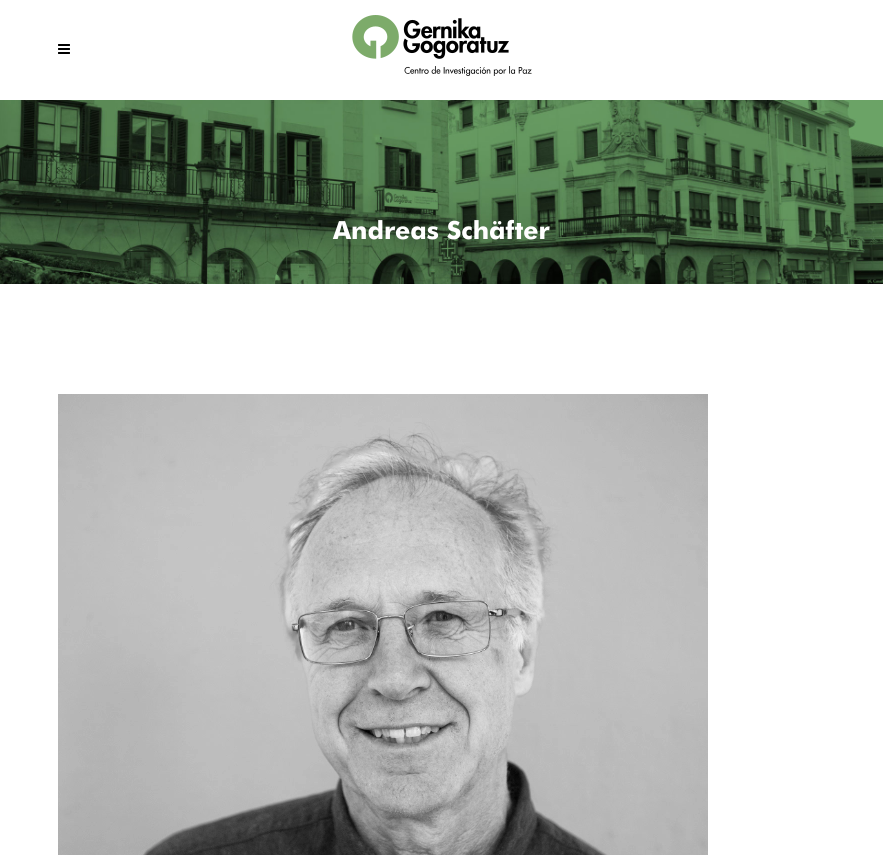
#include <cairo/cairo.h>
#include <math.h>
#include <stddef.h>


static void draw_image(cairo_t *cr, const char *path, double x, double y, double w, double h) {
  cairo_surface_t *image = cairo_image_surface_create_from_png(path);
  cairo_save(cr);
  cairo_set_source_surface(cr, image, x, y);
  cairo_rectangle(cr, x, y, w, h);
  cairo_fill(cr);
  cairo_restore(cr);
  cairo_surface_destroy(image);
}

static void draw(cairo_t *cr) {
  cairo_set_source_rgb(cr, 1, 1, 1);
  cairo_paint(cr);
  draw_image(cr, "images/1.png", 58, 44, 12, 10);
  draw_image(cr, "images/2.png", 352, 15, 180, 61);
  draw_image(cr, "images/3.png", 0, 100, 883, 184);
  draw_image(cr, "images/4.png", 58, 394, 650, 461);
  cairo_select_font_face(cr, "futura", CAIRO_FONT_SLANT_NORMAL, CAIRO_FONT_WEIGHT_BOLD);
  cairo_set_font_size(cr, 25);
  cairo_set_source_rgb(cr, 1, 1, 1);
  cairo_move_to(cr, 333, 239);
  cairo_show_text(cr, "Andreas Schäfter");
}

int main(void) {
  cairo_surface_t *surface = cairo_image_surface_create(CAIRO_FORMAT_RGB24, 883, 855);
  cairo_t *cr = cairo_create(surface);
  cairo_font_options_t *options = cairo_font_options_create();
  cairo_font_options_set_hint_metrics(options, CAIRO_HINT_METRICS_OFF);
  cairo_font_options_set_hint_style(options, CAIRO_HINT_STYLE_NONE);
  cairo_set_font_options(cr, options);
  cairo_set_miter_limit(cr, 4);
  draw(cr);
  cairo_surface_write_to_png(surface, "out.png");
  cairo_font_options_destroy(options);
  cairo_destroy(cr);
  cairo_surface_destroy(surface);
  return 0;
}
